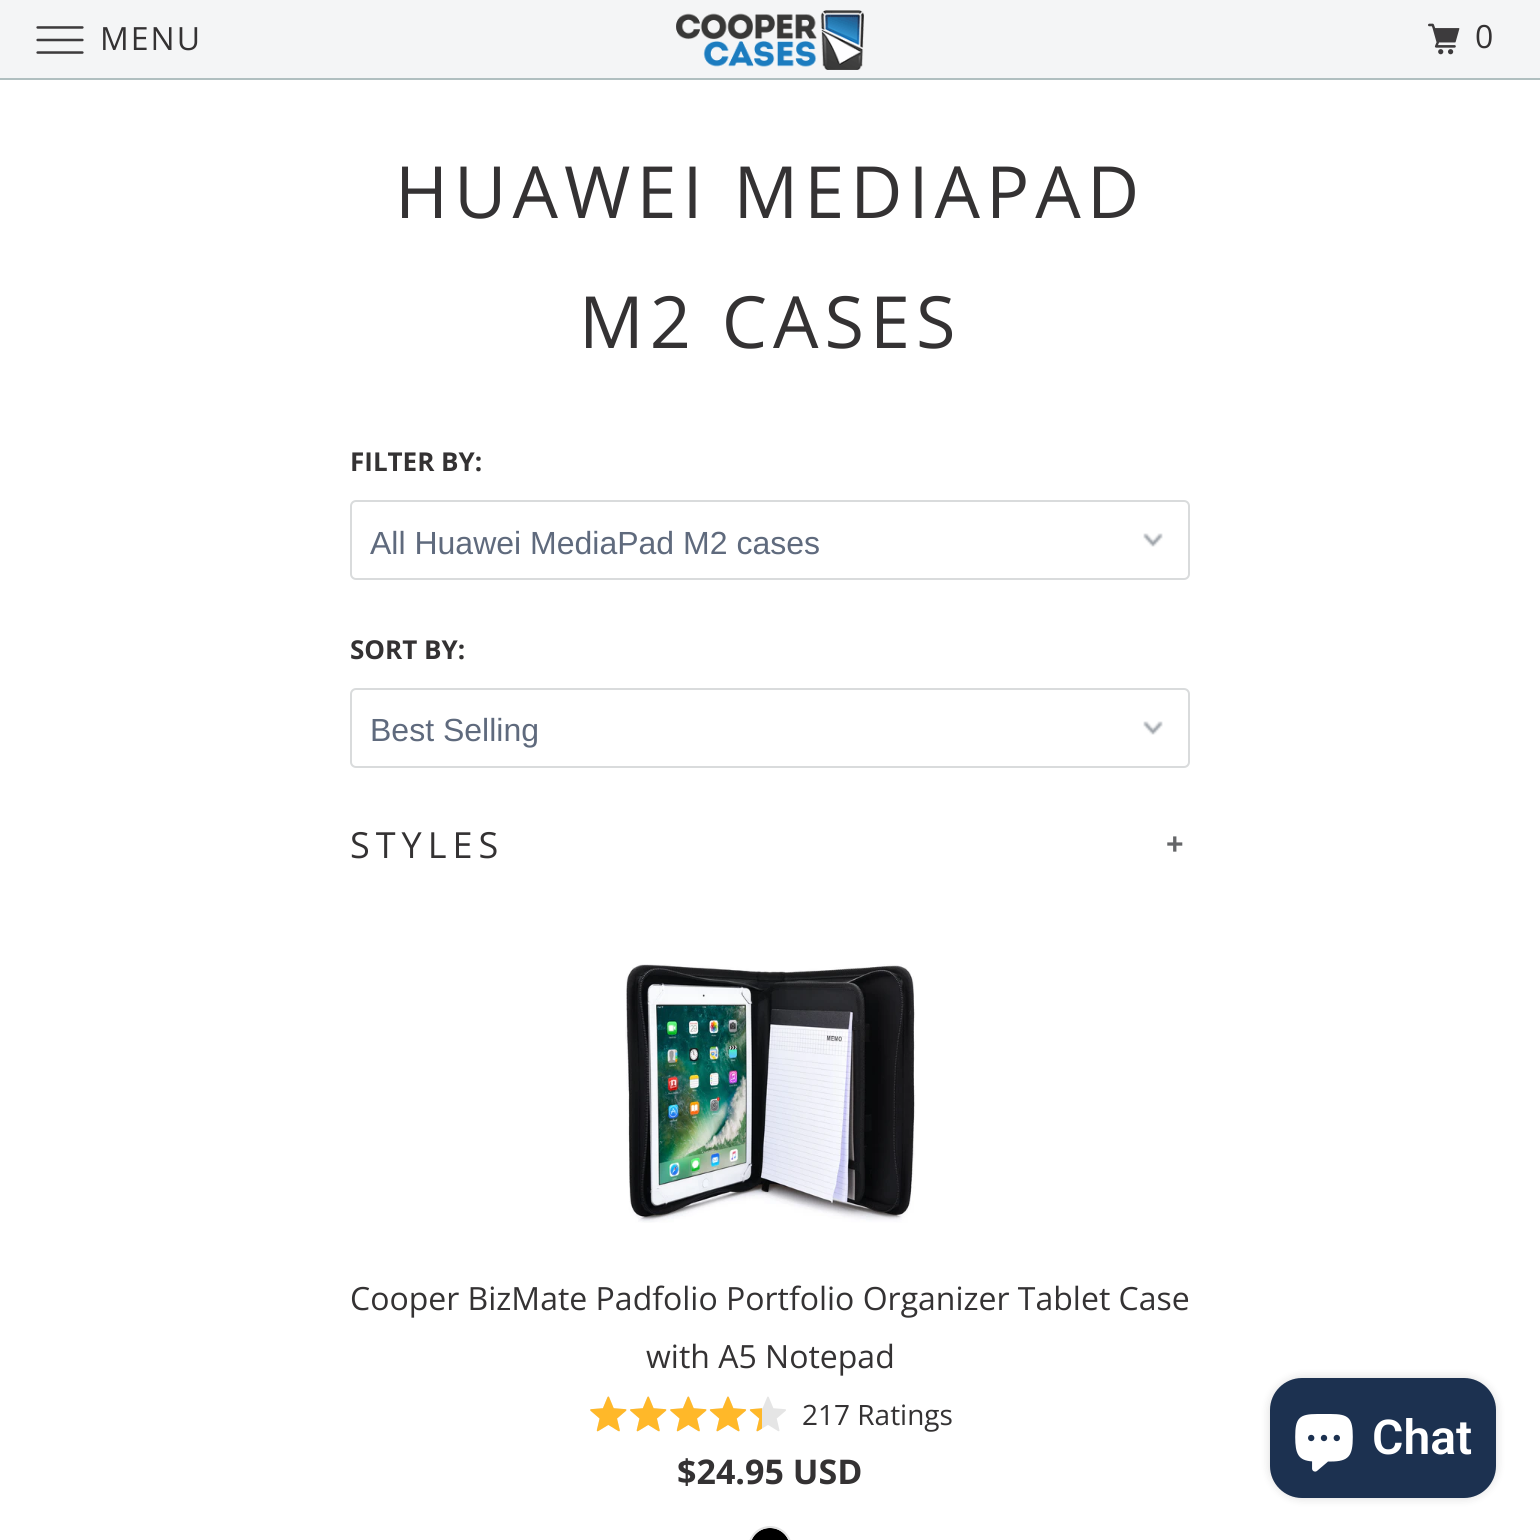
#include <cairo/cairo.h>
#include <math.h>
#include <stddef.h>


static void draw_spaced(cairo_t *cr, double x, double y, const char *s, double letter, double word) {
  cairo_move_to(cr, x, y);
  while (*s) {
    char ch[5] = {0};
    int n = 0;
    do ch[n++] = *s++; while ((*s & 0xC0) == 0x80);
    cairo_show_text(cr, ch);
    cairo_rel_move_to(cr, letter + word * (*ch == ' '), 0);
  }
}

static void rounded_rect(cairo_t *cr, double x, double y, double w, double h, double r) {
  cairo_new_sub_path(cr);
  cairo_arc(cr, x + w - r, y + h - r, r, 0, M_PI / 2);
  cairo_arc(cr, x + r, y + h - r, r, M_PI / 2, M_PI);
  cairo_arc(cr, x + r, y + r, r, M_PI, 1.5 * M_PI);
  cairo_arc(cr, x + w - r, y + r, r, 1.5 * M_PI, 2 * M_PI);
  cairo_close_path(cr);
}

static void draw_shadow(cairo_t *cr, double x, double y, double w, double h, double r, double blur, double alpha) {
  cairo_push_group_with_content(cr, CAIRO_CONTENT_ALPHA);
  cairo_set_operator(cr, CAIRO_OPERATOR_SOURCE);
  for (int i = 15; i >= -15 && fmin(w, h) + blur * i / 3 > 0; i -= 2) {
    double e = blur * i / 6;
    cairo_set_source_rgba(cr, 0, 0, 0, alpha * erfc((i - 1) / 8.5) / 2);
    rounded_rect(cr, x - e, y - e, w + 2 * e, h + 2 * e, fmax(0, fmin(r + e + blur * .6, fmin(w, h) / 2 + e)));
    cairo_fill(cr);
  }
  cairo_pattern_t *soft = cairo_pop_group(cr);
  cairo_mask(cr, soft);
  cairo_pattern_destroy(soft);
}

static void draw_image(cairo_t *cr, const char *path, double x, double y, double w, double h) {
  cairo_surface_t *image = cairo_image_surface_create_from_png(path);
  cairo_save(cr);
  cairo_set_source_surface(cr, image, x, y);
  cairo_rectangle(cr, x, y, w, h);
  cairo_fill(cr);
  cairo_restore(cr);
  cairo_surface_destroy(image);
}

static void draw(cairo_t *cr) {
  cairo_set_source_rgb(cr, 1, 1, 1);
  cairo_paint(cr);
  cairo_set_source_rgb(cr, 244 / 255.0, 245 / 255.0, 246 / 255.0);
  cairo_rectangle(cr, 0, 0, 1540, 78);
  cairo_fill(cr);
  cairo_set_source_rgb(cr, 176 / 255.0, 191 / 255.0, 192 / 255.0);
  cairo_rectangle(cr, 0, 78, 1540, 2);
  cairo_fill(cr);
  draw_image(cr, "images/1.png", 36, 26, 48, 28);
  draw_image(cr, "images/2.png", 676, 10, 188, 60);
  draw_image(cr, "images/3.png", 1428, 23, 32, 32);
  draw_image(cr, "images/4.png", 1143, 533, 20, 14);
  rounded_rect(cr, 351, 501, 838, 78, 5);
  cairo_set_source_rgb(cr, 217 / 255.0, 219 / 255.0, 220 / 255.0);
  cairo_stroke(cr);
  draw_image(cr, "images/4.png", 1143, 721, 20, 14);
  rounded_rect(cr, 351, 689, 838, 78, 5);
  cairo_stroke(cr);
  draw_image(cr, "images/5.png", 625, 964, 291, 259);
  draw_image(cr, "images/6.png", 590, 1396, 196, 36);
  draw_image(cr, "images/7.png", 590, 1396, 172, 36);
  cairo_set_source_rgb(cr, 0, 0, 0);
  rounded_rect(cr, 750, 1528, 40, 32, 20);
  cairo_fill(cr);
  rounded_rect(cr, 749, 1527, 42, 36, 21);
  cairo_set_source_rgb(cr, 226 / 255.0, 226 / 255.0, 226 / 255.0);
  cairo_stroke(cr);
  cairo_set_source_rgb(cr, 0, 0, 0);
  draw_shadow(cr, 1270, 1378, 226, 120, 32, 5, 0.15);
  cairo_set_source_rgb(cr, 28 / 255.0, 49 / 255.0, 80 / 255.0);
  rounded_rect(cr, 1270, 1378, 226, 120, 32);
  cairo_fill(cr);
  draw_image(cr, "images/8.png", 1295, 1414, 58, 58);
  cairo_select_font_face(cr, "Open Sans", CAIRO_FONT_SLANT_NORMAL, CAIRO_FONT_WEIGHT_NORMAL);
  cairo_set_font_size(cr, 32);
  cairo_set_source_rgb(cr, 52 / 255.0, 50 / 255.0, 51 / 255.0);
  draw_spaced(cr, 100, 50, "MENU", 2, 0);
  draw_spaced(cr, 1475, 48, "0", 2, 0);
  cairo_set_font_size(cr, 72);
  draw_spaced(cr, 395, 218, "HUAWEI MEDIAPAD", 6, 0);
  draw_spaced(cr, 579, 348, "M2 CASES", 6, 0);
  cairo_select_font_face(cr, "Open Sans", CAIRO_FONT_SLANT_NORMAL, CAIRO_FONT_WEIGHT_BOLD);
  cairo_set_font_size(cr, 26);
  cairo_move_to(cr, 350, 471);
  cairo_show_text(cr, "FILTER BY:");
  cairo_select_font_face(cr, "Liberation Sans", CAIRO_FONT_SLANT_NORMAL, CAIRO_FONT_WEIGHT_NORMAL);
  cairo_set_font_size(cr, 32);
  cairo_set_source_rgb(cr, 95 / 255.0, 106 / 255.0, 125 / 255.0);
  cairo_move_to(cr, 370, 554);
  cairo_show_text(cr, "All Huawei MediaPad M2 cases");
  cairo_select_font_face(cr, "Open Sans", CAIRO_FONT_SLANT_NORMAL, CAIRO_FONT_WEIGHT_BOLD);
  cairo_set_font_size(cr, 26);
  cairo_set_source_rgb(cr, 52 / 255.0, 50 / 255.0, 51 / 255.0);
  cairo_move_to(cr, 350, 659);
  cairo_show_text(cr, "SORT BY:");
  cairo_select_font_face(cr, "Liberation Sans", CAIRO_FONT_SLANT_NORMAL, CAIRO_FONT_WEIGHT_NORMAL);
  cairo_set_font_size(cr, 32);
  cairo_set_source_rgb(cr, 95 / 255.0, 106 / 255.0, 125 / 255.0);
  cairo_move_to(cr, 370, 741);
  cairo_show_text(cr, "Best Selling");
  cairo_select_font_face(cr, "Open Sans", CAIRO_FONT_SLANT_NORMAL, CAIRO_FONT_WEIGHT_NORMAL);
  cairo_set_font_size(cr, 36);
  cairo_set_source_rgb(cr, 52 / 255.0, 50 / 255.0, 51 / 255.0);
  draw_spaced(cr, 350, 858, "STYLES", 6, 0);
  cairo_select_font_face(cr, "Liberation Sans", CAIRO_FONT_SLANT_NORMAL, CAIRO_FONT_WEIGHT_BOLD);
  cairo_set_font_size(cr, 30);
  cairo_set_source_rgb(cr, 101 / 255.0, 102 / 255.0, 104 / 255.0);
  draw_spaced(cr, 1166, 854, "+", 6, 0);
  cairo_select_font_face(cr, "Open Sans", CAIRO_FONT_SLANT_NORMAL, CAIRO_FONT_WEIGHT_NORMAL);
  cairo_set_font_size(cr, 32);
  cairo_set_source_rgb(cr, 52 / 255.0, 50 / 255.0, 51 / 255.0);
  cairo_move_to(cr, 350, 1310);
  cairo_show_text(cr, "Cooper BizMate Padfolio Portfolio Organizer Tablet Case");
  cairo_move_to(cr, 646, 1368);
  cairo_show_text(cr, "with A5 Notepad");
  cairo_set_font_size(cr, 28);
  cairo_move_to(cr, 802, 1425);
  cairo_show_text(cr, "217 Ratings");
  cairo_select_font_face(cr, "Open Sans", CAIRO_FONT_SLANT_NORMAL, CAIRO_FONT_WEIGHT_BOLD);
  cairo_set_font_size(cr, 34);
  cairo_move_to(cr, 677, 1484);
  cairo_show_text(cr, "$24.95 USD");
  cairo_select_font_face(cr, "Roboto SemiBold", CAIRO_FONT_SLANT_NORMAL, CAIRO_FONT_WEIGHT_NORMAL);
  cairo_set_font_size(cr, 48);
  cairo_set_source_rgb(cr, 1, 1, 1);
  cairo_move_to(cr, 1372, 1454);
  cairo_show_text(cr, "Chat");
}

int main(void) {
  cairo_surface_t *surface = cairo_image_surface_create(CAIRO_FORMAT_RGB24, 1540, 1540);
  cairo_t *cr = cairo_create(surface);
  cairo_font_options_t *options = cairo_font_options_create();
  cairo_font_options_set_hint_metrics(options, CAIRO_HINT_METRICS_OFF);
  cairo_font_options_set_hint_style(options, CAIRO_HINT_STYLE_NONE);
  cairo_set_font_options(cr, options);
  cairo_set_miter_limit(cr, 4);
  draw(cr);
  cairo_surface_write_to_png(surface, "out.png");
  cairo_font_options_destroy(options);
  cairo_destroy(cr);
  cairo_surface_destroy(surface);
  return 0;
}
